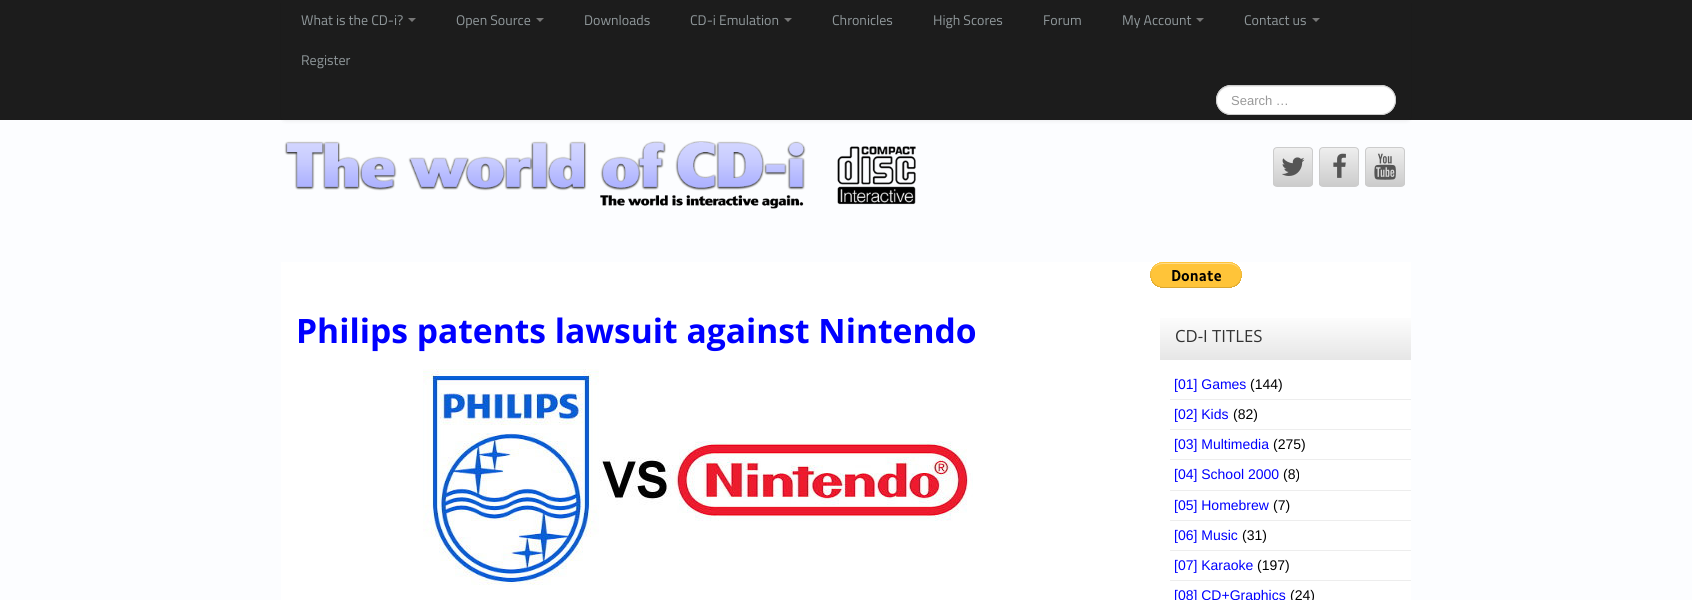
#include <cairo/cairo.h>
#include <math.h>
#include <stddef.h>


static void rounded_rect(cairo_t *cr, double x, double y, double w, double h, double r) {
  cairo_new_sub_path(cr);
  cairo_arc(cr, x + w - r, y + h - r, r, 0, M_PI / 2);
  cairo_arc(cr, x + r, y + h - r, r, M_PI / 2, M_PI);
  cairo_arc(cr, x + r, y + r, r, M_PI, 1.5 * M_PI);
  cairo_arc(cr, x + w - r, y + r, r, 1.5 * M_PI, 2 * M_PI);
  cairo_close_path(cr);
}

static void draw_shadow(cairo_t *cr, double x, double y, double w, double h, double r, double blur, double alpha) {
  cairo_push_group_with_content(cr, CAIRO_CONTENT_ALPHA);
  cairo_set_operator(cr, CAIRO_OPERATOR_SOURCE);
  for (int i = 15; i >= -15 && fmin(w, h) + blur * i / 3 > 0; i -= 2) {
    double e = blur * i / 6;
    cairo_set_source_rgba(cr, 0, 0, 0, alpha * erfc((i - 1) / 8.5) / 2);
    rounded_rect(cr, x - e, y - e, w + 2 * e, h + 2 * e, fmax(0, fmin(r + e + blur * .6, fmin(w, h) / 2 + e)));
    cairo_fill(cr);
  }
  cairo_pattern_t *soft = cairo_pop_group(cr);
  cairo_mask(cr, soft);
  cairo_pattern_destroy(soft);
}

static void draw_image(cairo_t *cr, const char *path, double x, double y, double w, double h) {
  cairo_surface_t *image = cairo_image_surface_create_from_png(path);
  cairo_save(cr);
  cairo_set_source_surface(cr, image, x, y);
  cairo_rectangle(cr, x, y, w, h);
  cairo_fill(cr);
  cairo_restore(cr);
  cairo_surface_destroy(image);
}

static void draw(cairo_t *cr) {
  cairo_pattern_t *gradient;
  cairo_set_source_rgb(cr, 252 / 255.0, 253 / 255.0, 1);
  cairo_paint(cr);
  cairo_set_source_rgb(cr, 28 / 255.0, 28 / 255.0, 28 / 255.0);
  cairo_rectangle(cr, 0, 0, 1692, 120);
  cairo_fill(cr);
  cairo_save(cr);
  cairo_set_fill_rule(cr, CAIRO_FILL_RULE_EVEN_ODD);
  cairo_new_path(cr);
  cairo_move_to(cr, 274, 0);
  cairo_line_to(cr, 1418, 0);
  cairo_line_to(cr, 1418, 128);
  cairo_line_to(cr, 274, 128);
  cairo_close_path(cr);
  cairo_move_to(cr, 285, 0);
  cairo_line_to(cr, 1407, 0);
  cairo_curve_to(cr, 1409, 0, 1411, 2, 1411, 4);
  cairo_line_to(cr, 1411, 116);
  cairo_curve_to(cr, 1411, 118, 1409, 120, 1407, 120);
  cairo_line_to(cr, 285, 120);
  cairo_curve_to(cr, 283, 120, 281, 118, 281, 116);
  cairo_line_to(cr, 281, 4);
  cairo_curve_to(cr, 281, 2, 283, 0, 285, 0);
  cairo_close_path(cr);
  cairo_clip(cr);
  cairo_set_source_rgb(cr, 0, 0, 0);
  draw_shadow(cr, 281, 1, 1130, 120, 4, 2, 0.07);
  cairo_restore(cr);
  cairo_set_source_rgb(cr, 119 / 255.0, 119 / 255.0, 119 / 255.0);
  cairo_new_path(cr);
  cairo_move_to(cr, 408, 18);
  cairo_line_to(cr, 416, 18);
  cairo_line_to(cr, 412, 22);
  cairo_close_path(cr);
  cairo_fill(cr);
  cairo_new_path(cr);
  cairo_move_to(cr, 536, 18);
  cairo_line_to(cr, 544, 18);
  cairo_line_to(cr, 540, 22);
  cairo_close_path(cr);
  cairo_fill(cr);
  cairo_new_path(cr);
  cairo_move_to(cr, 784, 18);
  cairo_line_to(cr, 792, 18);
  cairo_line_to(cr, 788, 22);
  cairo_close_path(cr);
  cairo_fill(cr);
  cairo_new_path(cr);
  cairo_move_to(cr, 1196, 18);
  cairo_line_to(cr, 1204, 18);
  cairo_line_to(cr, 1200, 22);
  cairo_close_path(cr);
  cairo_fill(cr);
  cairo_new_path(cr);
  cairo_move_to(cr, 1312, 18);
  cairo_line_to(cr, 1320, 18);
  cairo_line_to(cr, 1316, 22);
  cairo_close_path(cr);
  cairo_fill(cr);
  cairo_set_source_rgb(cr, 1, 1, 1);
  rounded_rect(cr, 1216, 85, 180, 30, 15);
  cairo_fill(cr);
  cairo_set_source_rgb(cr, 236 / 255.0, 236 / 255.0, 236 / 255.0);
  cairo_new_path(cr);
  cairo_move_to(cr, 1231, 87);
  cairo_line_to(cr, 1384, 87);
  cairo_curve_to(cr, 1392, 89, 1396, 96, 1395, 103);
  cairo_curve_to(cr, 1395, 100, 1395, 97, 1394, 95);
  cairo_curve_to(cr, 1388, 81, 1365, 86, 1356, 86);
  cairo_line_to(cr, 1256, 86);
  cairo_curve_to(cr, 1246, 86, 1215, 80, 1217, 101);
  cairo_curve_to(cr, 1217, 94, 1222, 87, 1231, 87);
  cairo_close_path(cr);
  cairo_fill(cr);
  rounded_rect(cr, 1216.5, 85.5, 179, 29, 14.5);
  cairo_set_source_rgb(cr, 204 / 255.0, 204 / 255.0, 204 / 255.0);
  cairo_set_line_width(cr, 1);
  cairo_stroke(cr);
  draw_image(cr, "images/1.png", 284, 141, 632, 68);
  cairo_save(cr);
  rounded_rect(cr, 1273, 147, 40, 40, 4);
  cairo_clip(cr);
  gradient = cairo_pattern_create_linear(1293, 148, 1293, 186);
  cairo_pattern_add_color_stop_rgba(gradient, 0, 238 / 255.0, 238 / 255.0, 238 / 255.0, 1);
  cairo_pattern_add_color_stop_rgba(gradient, 1, 204 / 255.0, 204 / 255.0, 204 / 255.0, 1);
  cairo_set_source(cr, gradient);
  cairo_pattern_destroy(gradient);
  cairo_rectangle(cr, 1273, 148, 40, 38);
  cairo_fill(cr);
  cairo_restore(cr);
  rounded_rect(cr, 1273.5, 147.5, 39, 39, 3.5);
  cairo_stroke(cr);
  draw_image(cr, "images/2.png", 1282, 157, 23, 19);
  cairo_save(cr);
  rounded_rect(cr, 1319, 147, 40, 40, 4);
  cairo_clip(cr);
  gradient = cairo_pattern_create_linear(1339, 148, 1339, 186);
  cairo_pattern_add_color_stop_rgba(gradient, 0, 238 / 255.0, 238 / 255.0, 238 / 255.0, 1);
  cairo_pattern_add_color_stop_rgba(gradient, 1, 204 / 255.0, 204 / 255.0, 204 / 255.0, 1);
  cairo_set_source(cr, gradient);
  cairo_pattern_destroy(gradient);
  cairo_rectangle(cr, 1319, 148, 40, 38);
  cairo_fill(cr);
  cairo_restore(cr);
  rounded_rect(cr, 1319.5, 147.5, 39, 39, 3.5);
  cairo_stroke(cr);
  draw_image(cr, "images/3.png", 1333, 153, 13, 25);
  cairo_save(cr);
  rounded_rect(cr, 1365, 147, 40, 40, 4);
  cairo_clip(cr);
  gradient = cairo_pattern_create_linear(1385, 148, 1385, 186);
  cairo_pattern_add_color_stop_rgba(gradient, 0, 238 / 255.0, 238 / 255.0, 238 / 255.0, 1);
  cairo_pattern_add_color_stop_rgba(gradient, 1, 204 / 255.0, 204 / 255.0, 204 / 255.0, 1);
  cairo_set_source(cr, gradient);
  cairo_pattern_destroy(gradient);
  cairo_rectangle(cr, 1365, 148, 40, 38);
  cairo_fill(cr);
  cairo_restore(cr);
  rounded_rect(cr, 1365.5, 147.5, 39, 39, 3.5);
  cairo_stroke(cr);
  draw_image(cr, "images/4.png", 1374, 153, 22, 27);
  cairo_set_source_rgb(cr, 1, 1, 1);
  cairo_rectangle(cr, 281, 262, 1130, 338);
  cairo_fill(cr);
  draw_image(cr, "images/5.png", 423, 369, 550, 216);
  draw_image(cr, "images/6.png", 1150, 262, 92, 26);
  gradient = cairo_pattern_create_linear(1286, 313, 1286, 360);
  cairo_pattern_add_color_stop_rgba(gradient, 0, 1, 1, 1, 1);
  cairo_pattern_add_color_stop_rgba(gradient, 1, 230 / 255.0, 230 / 255.0, 230 / 255.0, 1);
  cairo_set_source(cr, gradient);
  cairo_pattern_destroy(gradient);
  cairo_rectangle(cr, 1160, 318, 251, 42);
  cairo_fill(cr);
  cairo_set_source_rgb(cr, 237 / 255.0, 237 / 255.0, 237 / 255.0);
  cairo_rectangle(cr, 1170, 399, 241, 1);
  cairo_fill(cr);
  cairo_rectangle(cr, 1170, 429, 241, 1);
  cairo_fill(cr);
  cairo_rectangle(cr, 1170, 459, 241, 1);
  cairo_fill(cr);
  cairo_rectangle(cr, 1170, 490, 241, 1);
  cairo_fill(cr);
  cairo_rectangle(cr, 1170, 520, 241, 1);
  cairo_fill(cr);
  cairo_rectangle(cr, 1170, 550, 241, 1);
  cairo_fill(cr);
  cairo_rectangle(cr, 1170, 580, 241, 1);
  cairo_fill(cr);
  cairo_select_font_face(cr, "Titillium Web", CAIRO_FONT_SLANT_NORMAL, CAIRO_FONT_WEIGHT_NORMAL);
  cairo_set_font_size(cr, 14);
  cairo_set_source_rgb(cr, 144 / 255.0, 152 / 255.0, 155 / 255.0);
  cairo_move_to(cr, 301, 25);
  cairo_show_text(cr, "What is the CD-i?");
  cairo_move_to(cr, 456, 25);
  cairo_show_text(cr, "Open Source");
  cairo_move_to(cr, 584, 25);
  cairo_show_text(cr, "Downloads");
  cairo_move_to(cr, 690, 25);
  cairo_show_text(cr, "CD-i Emulation");
  cairo_move_to(cr, 832, 25);
  cairo_show_text(cr, "Chronicles");
  cairo_move_to(cr, 933, 25);
  cairo_show_text(cr, "High Scores");
  cairo_move_to(cr, 1043, 25);
  cairo_show_text(cr, "Forum");
  cairo_move_to(cr, 1122, 25);
  cairo_show_text(cr, "My Account");
  cairo_move_to(cr, 1244, 25);
  cairo_show_text(cr, "Contact us");
  cairo_move_to(cr, 301, 65);
  cairo_show_text(cr, "Register");
  cairo_select_font_face(cr, "Liberation Sans", CAIRO_FONT_SLANT_NORMAL, CAIRO_FONT_WEIGHT_NORMAL);
  cairo_set_font_size(cr, 13);
  cairo_set_source_rgb(cr, 153 / 255.0, 153 / 255.0, 153 / 255.0);
  cairo_move_to(cr, 1231, 105);
  cairo_show_text(cr, "Search …");
  cairo_select_font_face(cr, "Open Sans", CAIRO_FONT_SLANT_NORMAL, CAIRO_FONT_WEIGHT_BOLD);
  cairo_set_font_size(cr, 33.6);
  cairo_set_source_rgb(cr, 0, 0, 1);
  cairo_move_to(cr, 296, 343);
  cairo_show_text(cr, "Philips patents lawsuit against Nintendo");
  cairo_select_font_face(cr, "Open Sans", CAIRO_FONT_SLANT_NORMAL, CAIRO_FONT_WEIGHT_NORMAL);
  cairo_set_font_size(cr, 16.75);
  cairo_set_source_rgb(cr, 51 / 255.0, 51 / 255.0, 51 / 255.0);
  cairo_move_to(cr, 1175, 342);
  cairo_show_text(cr, "CD-I TITLES");
  cairo_select_font_face(cr, "Liberation Sans", CAIRO_FONT_SLANT_NORMAL, CAIRO_FONT_WEIGHT_NORMAL);
  cairo_set_font_size(cr, 14);
  cairo_set_source_rgb(cr, 0, 0, 1);
  cairo_move_to(cr, 1174, 389);
  cairo_show_text(cr, "[01] Games");
  cairo_set_source_rgb(cr, 0, 0, 0);
  cairo_move_to(cr, 1250, 389);
  cairo_show_text(cr, "(144)");
  cairo_set_source_rgb(cr, 0, 0, 1);
  cairo_move_to(cr, 1174, 419);
  cairo_show_text(cr, "[02] Kids");
  cairo_set_source_rgb(cr, 0, 0, 0);
  cairo_move_to(cr, 1233, 419);
  cairo_show_text(cr, "(82)");
  cairo_set_source_rgb(cr, 0, 0, 1);
  cairo_move_to(cr, 1174, 449);
  cairo_show_text(cr, "[03] Multimedia");
  cairo_set_source_rgb(cr, 0, 0, 0);
  cairo_move_to(cr, 1273, 449);
  cairo_show_text(cr, "(275)");
  cairo_set_source_rgb(cr, 0, 0, 1);
  cairo_move_to(cr, 1174, 479);
  cairo_show_text(cr, "[04] School 2000");
  cairo_set_source_rgb(cr, 0, 0, 0);
  cairo_move_to(cr, 1283, 479);
  cairo_show_text(cr, "(8)");
  cairo_set_source_rgb(cr, 0, 0, 1);
  cairo_move_to(cr, 1174, 510);
  cairo_show_text(cr, "[05] Homebrew");
  cairo_set_source_rgb(cr, 0, 0, 0);
  cairo_move_to(cr, 1273, 510);
  cairo_show_text(cr, "(7)");
  cairo_set_source_rgb(cr, 0, 0, 1);
  cairo_move_to(cr, 1174, 540);
  cairo_show_text(cr, "[06] Music");
  cairo_set_source_rgb(cr, 0, 0, 0);
  cairo_move_to(cr, 1242, 540);
  cairo_show_text(cr, "(31)");
  cairo_set_source_rgb(cr, 0, 0, 1);
  cairo_move_to(cr, 1174, 570);
  cairo_show_text(cr, "[07] Karaoke");
  cairo_set_source_rgb(cr, 0, 0, 0);
  cairo_move_to(cr, 1257, 570);
  cairo_show_text(cr, "(197)");
  cairo_set_source_rgb(cr, 0, 0, 1);
  cairo_move_to(cr, 1174, 600);
  cairo_show_text(cr, "[08] CD+Graphics");
  cairo_set_source_rgb(cr, 0, 0, 0);
  cairo_move_to(cr, 1290, 600);
  cairo_show_text(cr, "(24)");
}

int main(void) {
  cairo_surface_t *surface = cairo_image_surface_create(CAIRO_FORMAT_RGB24, 1692, 600);
  cairo_t *cr = cairo_create(surface);
  cairo_font_options_t *options = cairo_font_options_create();
  cairo_font_options_set_hint_metrics(options, CAIRO_HINT_METRICS_OFF);
  cairo_font_options_set_hint_style(options, CAIRO_HINT_STYLE_NONE);
  cairo_set_font_options(cr, options);
  cairo_set_miter_limit(cr, 4);
  draw(cr);
  cairo_surface_write_to_png(surface, "out.png");
  cairo_font_options_destroy(options);
  cairo_destroy(cr);
  cairo_surface_destroy(surface);
  return 0;
}
